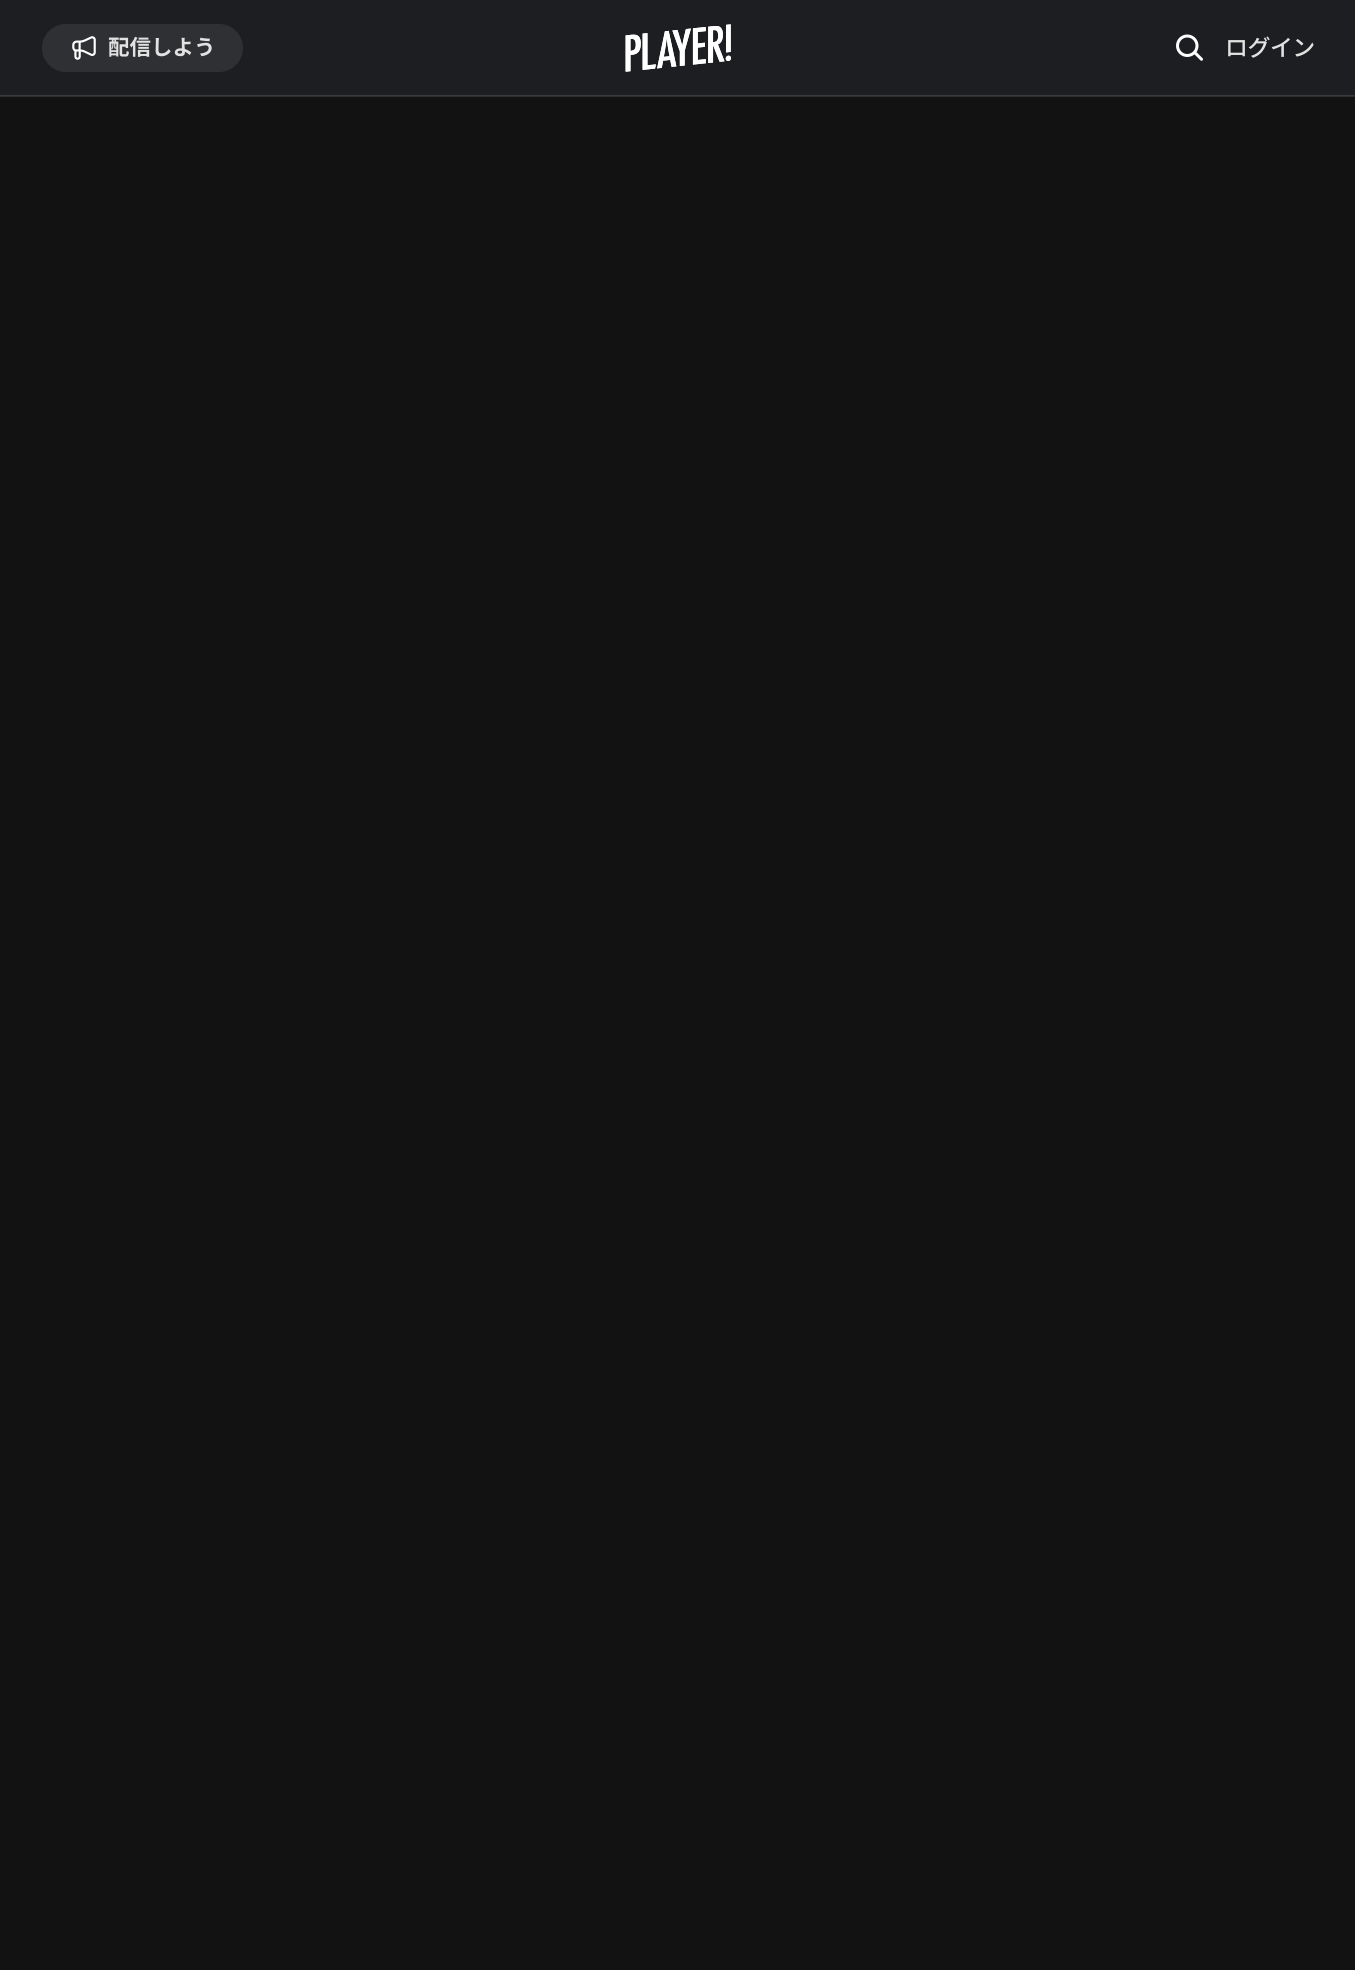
#include <cairo/cairo.h>
#include <math.h>
#include <stddef.h>


static void draw_spaced(cairo_t *cr, double x, double y, const char *s, double letter, double word) {
  cairo_move_to(cr, x, y);
  while (*s) {
    char ch[5] = {0};
    int n = 0;
    do ch[n++] = *s++; while ((*s & 0xC0) == 0x80);
    cairo_show_text(cr, ch);
    cairo_rel_move_to(cr, letter + word * (*ch == ' '), 0);
  }
}

static void rounded_rect(cairo_t *cr, double x, double y, double w, double h, double r) {
  cairo_new_sub_path(cr);
  cairo_arc(cr, x + w - r, y + h - r, r, 0, M_PI / 2);
  cairo_arc(cr, x + r, y + h - r, r, M_PI / 2, M_PI);
  cairo_arc(cr, x + r, y + r, r, M_PI, 1.5 * M_PI);
  cairo_arc(cr, x + w - r, y + r, r, 1.5 * M_PI, 2 * M_PI);
  cairo_close_path(cr);
}

static void draw_image(cairo_t *cr, const char *path, double x, double y, double w, double h) {
  cairo_surface_t *image = cairo_image_surface_create_from_png(path);
  cairo_save(cr);
  cairo_set_source_surface(cr, image, x, y);
  cairo_rectangle(cr, x, y, w, h);
  cairo_fill(cr);
  cairo_restore(cr);
  cairo_surface_destroy(image);
}

static void draw(cairo_t *cr) {
  cairo_set_source_rgb(cr, 18 / 255.0, 18 / 255.0, 18 / 255.0);
  cairo_paint(cr);
  cairo_set_source_rgb(cr, 46 / 255.0, 46 / 255.0, 46 / 255.0);
  cairo_rectangle(cr, 0, 96, 1355, 1);
  cairo_fill(cr);
  cairo_set_source_rgb(cr, 29 / 255.0, 30 / 255.0, 33 / 255.0);
  cairo_rectangle(cr, 0, 0, 1355, 95);
  cairo_fill(cr);
  cairo_set_source_rgb(cr, 56 / 255.0, 57 / 255.0, 60 / 255.0);
  cairo_rectangle(cr, 0, 95, 1355, 1);
  cairo_fill(cr);
  cairo_set_source_rgb(cr, 47 / 255.0, 48 / 255.0, 51 / 255.0);
  rounded_rect(cr, 42, 24, 201, 48, 24);
  cairo_fill(cr);
  draw_image(cr, "images/1.png", 72, 36, 24, 24);
  draw_image(cr, "images/2.png", 625, 24, 106, 48);
  draw_image(cr, "images/3.png", 1176, 34, 27, 27);
  cairo_select_font_face(cr, "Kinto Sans", CAIRO_FONT_SLANT_NORMAL, CAIRO_FONT_WEIGHT_BOLD);
  cairo_set_font_size(cr, 22.5);
  cairo_set_source_rgb(cr, 226 / 255.0, 226 / 255.0, 226 / 255.0);
  cairo_move_to(cr, 108, 55);
  cairo_show_text(cr, "配信しよう");
  cairo_select_font_face(cr, "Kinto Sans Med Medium", CAIRO_FONT_SLANT_NORMAL, CAIRO_FONT_WEIGHT_NORMAL);
  cairo_set_font_size(cr, 24);
  draw_spaced(cr, 1225, 56, "ログイン", -0.5, 0);
}

int main(void) {
  cairo_surface_t *surface = cairo_image_surface_create(CAIRO_FORMAT_RGB24, 1355, 1970);
  cairo_t *cr = cairo_create(surface);
  cairo_font_options_t *options = cairo_font_options_create();
  cairo_font_options_set_hint_metrics(options, CAIRO_HINT_METRICS_OFF);
  cairo_font_options_set_hint_style(options, CAIRO_HINT_STYLE_NONE);
  cairo_set_font_options(cr, options);
  cairo_set_miter_limit(cr, 4);
  draw(cr);
  cairo_surface_write_to_png(surface, "out.png");
  cairo_font_options_destroy(options);
  cairo_destroy(cr);
  cairo_surface_destroy(surface);
  return 0;
}
